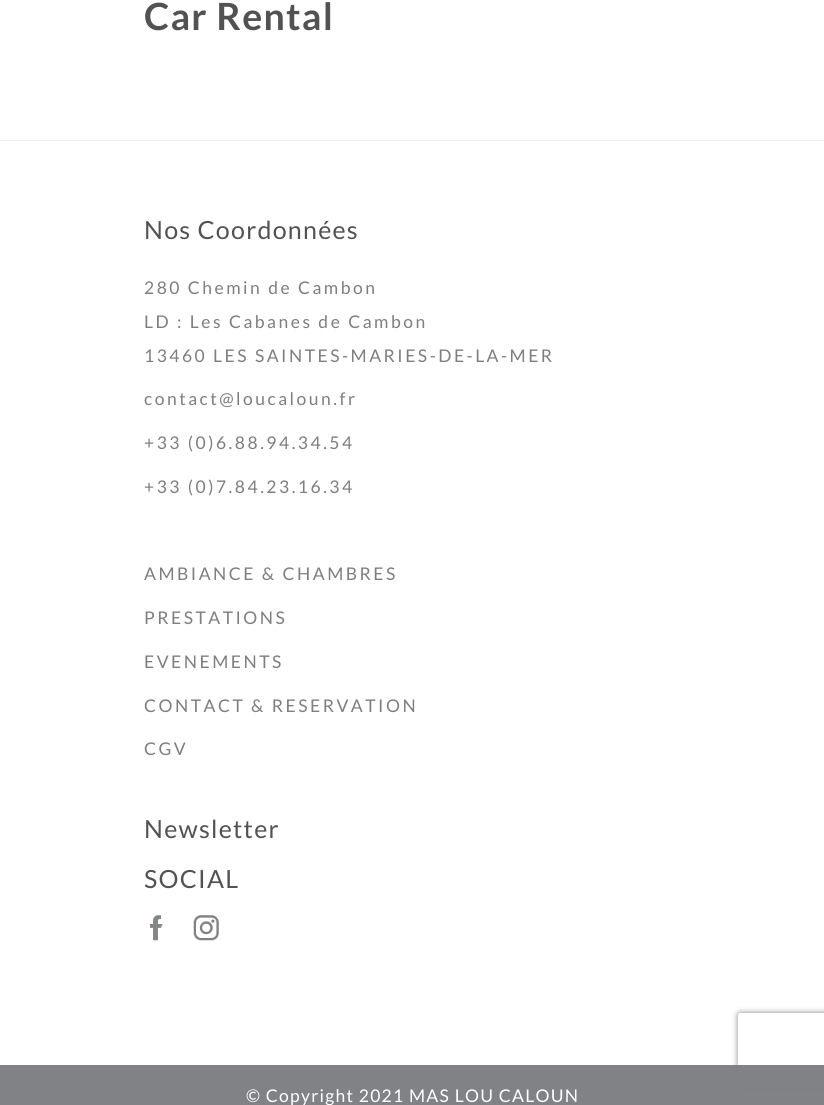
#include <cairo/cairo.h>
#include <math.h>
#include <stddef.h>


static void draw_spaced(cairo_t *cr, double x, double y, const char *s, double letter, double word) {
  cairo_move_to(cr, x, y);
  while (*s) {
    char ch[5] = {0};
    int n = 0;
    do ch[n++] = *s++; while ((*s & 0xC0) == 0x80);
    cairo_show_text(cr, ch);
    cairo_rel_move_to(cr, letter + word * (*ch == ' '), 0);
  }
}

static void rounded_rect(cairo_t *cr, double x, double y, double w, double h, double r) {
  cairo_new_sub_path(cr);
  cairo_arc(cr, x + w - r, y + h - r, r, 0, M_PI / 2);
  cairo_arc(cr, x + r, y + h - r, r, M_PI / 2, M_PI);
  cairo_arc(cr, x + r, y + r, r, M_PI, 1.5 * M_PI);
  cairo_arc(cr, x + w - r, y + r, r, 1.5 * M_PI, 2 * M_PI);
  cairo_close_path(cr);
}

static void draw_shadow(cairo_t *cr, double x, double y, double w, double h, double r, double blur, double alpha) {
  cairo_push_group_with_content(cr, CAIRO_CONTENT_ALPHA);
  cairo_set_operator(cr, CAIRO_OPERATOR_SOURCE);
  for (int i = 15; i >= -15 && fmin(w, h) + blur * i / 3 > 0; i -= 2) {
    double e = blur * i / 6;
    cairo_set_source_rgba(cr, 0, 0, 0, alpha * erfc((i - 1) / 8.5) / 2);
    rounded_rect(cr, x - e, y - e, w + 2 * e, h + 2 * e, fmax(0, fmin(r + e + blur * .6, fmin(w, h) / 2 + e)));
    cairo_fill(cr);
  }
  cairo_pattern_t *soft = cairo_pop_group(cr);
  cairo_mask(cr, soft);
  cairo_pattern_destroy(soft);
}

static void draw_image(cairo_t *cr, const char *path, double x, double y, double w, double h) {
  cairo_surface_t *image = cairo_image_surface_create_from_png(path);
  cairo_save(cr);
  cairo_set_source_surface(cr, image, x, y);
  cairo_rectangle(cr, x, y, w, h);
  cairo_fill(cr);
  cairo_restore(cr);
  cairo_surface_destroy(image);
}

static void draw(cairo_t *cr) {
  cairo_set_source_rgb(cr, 1, 1, 1);
  cairo_paint(cr);
  cairo_set_source_rgb(cr, 241 / 255.0, 241 / 255.0, 241 / 255.0);
  cairo_rectangle(cr, 0, 140, 824, 1);
  cairo_fill(cr);
  draw_image(cr, "images/1.png", 150, 915, 13, 26);
  draw_image(cr, "images/2.png", 193, 915, 26, 26);
  cairo_set_source_rgb(cr, 129 / 255.0, 130 / 255.0, 133 / 255.0);
  cairo_rectangle(cr, 0, 1065, 824, 40);
  cairo_fill(cr);
  cairo_save(cr);
  cairo_set_fill_rule(cr, CAIRO_FILL_RULE_EVEN_ODD);
  cairo_new_path(cr);
  cairo_move_to(cr, 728, 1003);
  cairo_line_to(cr, 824, 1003);
  cairo_line_to(cr, 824, 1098);
  cairo_line_to(cr, 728, 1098);
  cairo_close_path(cr);
  cairo_move_to(cr, 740.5, 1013);
  cairo_line_to(cr, 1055.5, 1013);
  cairo_curve_to(cr, 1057, 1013, 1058, 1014, 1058, 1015.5);
  cairo_line_to(cr, 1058, 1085.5);
  cairo_curve_to(cr, 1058, 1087, 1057, 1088, 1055.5, 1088);
  cairo_line_to(cr, 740.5, 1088);
  cairo_curve_to(cr, 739, 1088, 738, 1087, 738, 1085.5);
  cairo_line_to(cr, 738, 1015.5);
  cairo_curve_to(cr, 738, 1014, 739, 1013, 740.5, 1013);
  cairo_close_path(cr);
  cairo_clip(cr);
  cairo_set_source_rgb(cr, 128 / 255.0, 128 / 255.0, 128 / 255.0);
  draw_shadow(cr, 738, 1013, 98, 75, 2.5, 3, 1);
  cairo_restore(cr);
  cairo_select_font_face(cr, "Lato", CAIRO_FONT_SLANT_NORMAL, CAIRO_FONT_WEIGHT_BOLD);
  cairo_set_font_size(cr, 37.5);
  cairo_set_source_rgb(cr, 82 / 255.0, 82 / 255.0, 82 / 255.0);
  draw_spaced(cr, 144, 30, "Car Rental", 1.25, 0);
  cairo_select_font_face(cr, "Lato", CAIRO_FONT_SLANT_NORMAL, CAIRO_FONT_WEIGHT_NORMAL);
  cairo_set_font_size(cr, 25);
  draw_spaced(cr, 144, 239, "Nos Coordonnées", 1.25, 0);
  cairo_set_font_size(cr, 17.5);
  cairo_set_source_rgb(cr, 126 / 255.0, 126 / 255.0, 126 / 255.0);
  draw_spaced(cr, 144, 294, "280 Chemin de Cambon", 2.5, 0);
  draw_spaced(cr, 144, 328, "LD : Les Cabanes de Cambon", 2.5, 0);
  draw_spaced(cr, 144, 362, "13460 LES SAINTES-MARIES-DE-LA-MER", 2.5, 0);
  draw_spaced(cr, 144, 405, "contact@loucaloun.fr", 2.5, 0);
  draw_spaced(cr, 144, 449, "+33 (0)6.88.94.34.54", 2.5, 0);
  draw_spaced(cr, 144, 493, "+33 (0)7.84.23.16.34", 2.5, 0);
  draw_spaced(cr, 144, 580, "AMBIANCE & CHAMBRES", 2.5, 0);
  draw_spaced(cr, 144, 624, "PRESTATIONS", 2.5, 0);
  draw_spaced(cr, 144, 668, "EVENEMENTS", 2.5, 0);
  draw_spaced(cr, 144, 712, "CONTACT & RESERVATION", 2.5, 0);
  draw_spaced(cr, 144, 755, "CGV", 2.5, 0);
  cairo_set_font_size(cr, 25);
  cairo_set_source_rgb(cr, 82 / 255.0, 82 / 255.0, 82 / 255.0);
  draw_spaced(cr, 144, 838, "Newsletter", 1.25, 0);
  draw_spaced(cr, 144, 888, "SOCIAL", 1.25, 0);
  cairo_set_font_size(cr, 17.5);
  cairo_set_source_rgb(cr, 1, 1, 1);
  draw_spaced(cr, 246, 1102, "© Copyright 2021 MAS LOU CALOUN", 1.25, 0);
}

int main(void) {
  cairo_surface_t *surface = cairo_image_surface_create(CAIRO_FORMAT_RGB24, 824, 1105);
  cairo_t *cr = cairo_create(surface);
  cairo_font_options_t *options = cairo_font_options_create();
  cairo_font_options_set_hint_metrics(options, CAIRO_HINT_METRICS_OFF);
  cairo_font_options_set_hint_style(options, CAIRO_HINT_STYLE_NONE);
  cairo_set_font_options(cr, options);
  cairo_set_miter_limit(cr, 4);
  draw(cr);
  cairo_surface_write_to_png(surface, "out.png");
  cairo_font_options_destroy(options);
  cairo_destroy(cr);
  cairo_surface_destroy(surface);
  return 0;
}
